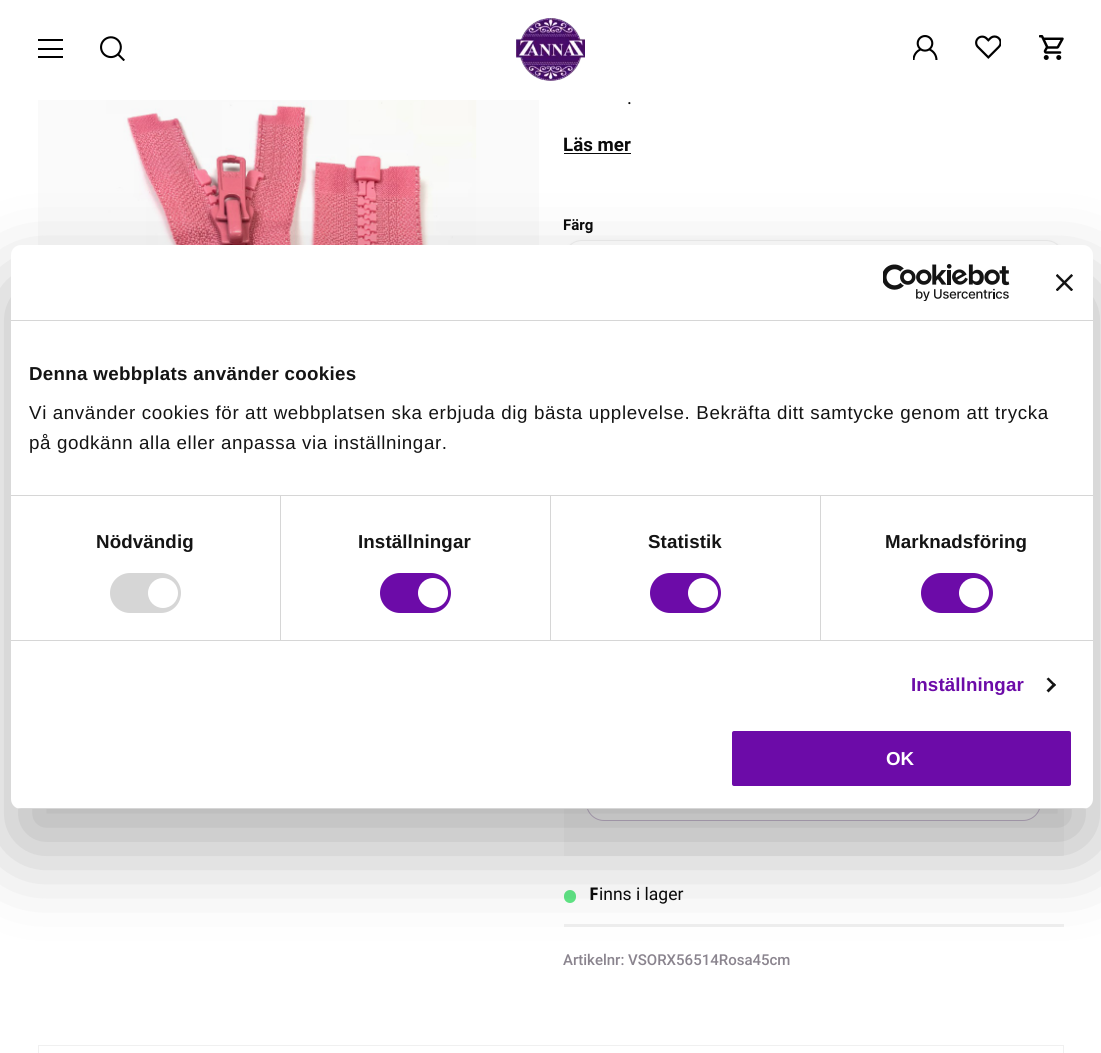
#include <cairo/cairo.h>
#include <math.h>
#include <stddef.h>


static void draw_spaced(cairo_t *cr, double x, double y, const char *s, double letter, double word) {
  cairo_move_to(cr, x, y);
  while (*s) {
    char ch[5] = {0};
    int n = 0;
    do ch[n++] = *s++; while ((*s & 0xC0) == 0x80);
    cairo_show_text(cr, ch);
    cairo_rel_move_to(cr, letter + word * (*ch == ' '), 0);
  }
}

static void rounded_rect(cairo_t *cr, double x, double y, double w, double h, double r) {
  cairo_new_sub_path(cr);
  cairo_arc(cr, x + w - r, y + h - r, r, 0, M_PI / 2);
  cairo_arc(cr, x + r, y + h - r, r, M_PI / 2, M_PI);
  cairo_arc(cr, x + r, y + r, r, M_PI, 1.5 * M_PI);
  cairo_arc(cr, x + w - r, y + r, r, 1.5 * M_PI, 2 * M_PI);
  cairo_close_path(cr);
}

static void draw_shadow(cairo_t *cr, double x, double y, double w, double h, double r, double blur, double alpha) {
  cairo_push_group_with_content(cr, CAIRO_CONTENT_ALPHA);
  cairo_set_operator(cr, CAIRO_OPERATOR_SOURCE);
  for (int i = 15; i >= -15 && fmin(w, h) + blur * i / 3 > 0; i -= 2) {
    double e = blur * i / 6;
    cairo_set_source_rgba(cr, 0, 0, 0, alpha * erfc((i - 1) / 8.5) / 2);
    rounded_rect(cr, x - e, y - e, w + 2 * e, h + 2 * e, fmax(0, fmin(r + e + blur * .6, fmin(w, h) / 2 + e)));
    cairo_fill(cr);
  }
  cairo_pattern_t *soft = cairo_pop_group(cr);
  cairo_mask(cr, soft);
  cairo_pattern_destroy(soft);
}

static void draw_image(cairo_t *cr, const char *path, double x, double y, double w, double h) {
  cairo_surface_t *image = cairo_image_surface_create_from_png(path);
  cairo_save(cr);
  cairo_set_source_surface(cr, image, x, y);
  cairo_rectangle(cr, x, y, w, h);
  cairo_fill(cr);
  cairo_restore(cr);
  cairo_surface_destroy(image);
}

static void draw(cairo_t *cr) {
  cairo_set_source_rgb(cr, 1, 1, 1);
  cairo_paint(cr);
  cairo_set_source_rgb(cr, 0, 0, 0);
  cairo_rectangle(cr, 38, 39, 25, 2);
  cairo_fill(cr);
  cairo_rectangle(cr, 38, 48, 25, 2);
  cairo_fill(cr);
  cairo_rectangle(cr, 38, 56, 25, 2);
  cairo_fill(cr);
  draw_image(cr, "images/1.png", 100, 36, 25, 25);
  draw_image(cr, "images/2.png", 516, 18, 69, 63);
  draw_image(cr, "images/3.png", 913, 35, 25, 25);
  draw_image(cr, "images/4.png", 975, 35, 26, 24);
  draw_image(cr, "images/5.png", 1039, 35, 25, 25);
  cairo_set_source_rgb(cr, 250 / 255.0, 250 / 255.0, 250 / 255.0);
  cairo_rectangle(cr, 38, 100, 501, 145);
  cairo_fill(cr);
  draw_image(cr, "images/6.png", 106, 100, 371, 145);
  cairo_set_source_rgb(cr, 10 / 255.0, 10 / 255.0, 10 / 255.0);
  cairo_rectangle(cr, 564, 153, 67, 1);
  cairo_fill(cr);
  cairo_set_source_rgb(cr, 226 / 255.0, 226 / 255.0, 226 / 255.0);
  draw_shadow(cr, 564, 243, 500, 53, 18, 2.5, 0.84);
  cairo_set_source_rgb(cr, 1, 1, 1);
  rounded_rect(cr, 564.5, 240.5, 499, 53, 17.5);
  cairo_fill_preserve(cr);
  cairo_set_source_rgb(cr, 240 / 255.0, 240 / 255.0, 240 / 255.0);
  cairo_set_line_width(cr, 1);
  cairo_stroke(cr);
  cairo_set_source_rgb(cr, 249 / 255.0, 249 / 255.0, 249 / 255.0);
  cairo_rectangle(cr, 564, 809, 500, 47);
  cairo_fill(cr);
  cairo_set_source_rgb(cr, 251 / 255.0, 251 / 255.0, 251 / 255.0);
  rounded_rect(cr, 586.5, 756.5, 454, 64, 17.5);
  cairo_fill_preserve(cr);
  cairo_set_source_rgb(cr, 204 / 255.0, 190 / 255.0, 213 / 255.0);
  cairo_stroke(cr);
  cairo_set_source_rgb(cr, 97 / 255.0, 231 / 255.0, 134 / 255.0);
  rounded_rect(cr, 564, 890, 12, 13, 6);
  cairo_fill(cr);
  cairo_set_source_rgb(cr, 240 / 255.0, 240 / 255.0, 240 / 255.0);
  cairo_rectangle(cr, 564, 924, 500, 3);
  cairo_fill(cr);
  cairo_rectangle(cr, 38, 1045, 1026, 1);
  cairo_fill(cr);
  cairo_rectangle(cr, 1063, 1045, 1, 8);
  cairo_fill(cr);
  cairo_rectangle(cr, 38, 1045, 1, 8);
  cairo_fill(cr);
  cairo_set_source_rgb(cr, 0, 0, 0);
  draw_shadow(cr, 11, 285, 1082, 564, 10, 42.5, 0.3);
  cairo_set_source_rgb(cr, 1, 1, 1);
  rounded_rect(cr, 11, 245, 1082, 564, 10);
  cairo_fill(cr);
  cairo_set_source_rgb(cr, 214 / 255.0, 214 / 255.0, 214 / 255.0);
  cairo_rectangle(cr, 11, 320, 1082, 1);
  cairo_fill(cr);
  draw_image(cr, "images/7.png", 883, 264, 127, 37);
  draw_image(cr, "images/8.png", 1056, 274, 17, 17);
  cairo_rectangle(cr, 11, 495, 1082, 1);
  cairo_fill(cr);
  cairo_rectangle(cr, 11, 640, 1082, 1);
  cairo_fill(cr);
  cairo_rectangle(cr, 280, 496, 1, 144);
  cairo_fill(cr);
  rounded_rect(cr, 110, 573, 71, 40, 20);
  cairo_fill(cr);
  cairo_set_source_rgb(cr, 1, 1, 1);
  cairo_arc(cr, 163, 593, 15, 0, 2 * M_PI);
  cairo_fill(cr);
  cairo_set_source_rgb(cr, 214 / 255.0, 214 / 255.0, 214 / 255.0);
  cairo_rectangle(cr, 550, 496, 1, 144);
  cairo_fill(cr);
  cairo_set_source_rgb(cr, 108 / 255.0, 11 / 255.0, 168 / 255.0);
  rounded_rect(cr, 380, 573, 71, 40, 20);
  cairo_fill(cr);
  cairo_set_source_rgb(cr, 1, 1, 1);
  cairo_arc(cr, 433, 593, 15, 0, 2 * M_PI);
  cairo_fill(cr);
  cairo_set_source_rgb(cr, 214 / 255.0, 214 / 255.0, 214 / 255.0);
  cairo_rectangle(cr, 820, 496, 1, 144);
  cairo_fill(cr);
  cairo_set_source_rgb(cr, 108 / 255.0, 11 / 255.0, 168 / 255.0);
  rounded_rect(cr, 650, 573, 71, 40, 20);
  cairo_fill(cr);
  cairo_set_source_rgb(cr, 1, 1, 1);
  cairo_arc(cr, 703, 593, 15, 0, 2 * M_PI);
  cairo_fill(cr);
  cairo_set_source_rgb(cr, 108 / 255.0, 11 / 255.0, 168 / 255.0);
  rounded_rect(cr, 921, 573, 72, 40, 20);
  cairo_fill(cr);
  cairo_set_source_rgb(cr, 1, 1, 1);
  cairo_arc(cr, 974, 593, 15, 0, 2 * M_PI);
  cairo_fill(cr);
  cairo_set_source_rgb(cr, 20 / 255.0, 20 / 255.0, 20 / 255.0);
  cairo_new_path(cr);
  cairo_move_to(cr, 1048.5, 677.5);
  cairo_line_to(cr, 1056, 685);
  cairo_line_to(cr, 1054, 686.5);
  cairo_line_to(cr, 1046.5, 679);
  cairo_close_path(cr);
  cairo_fill(cr);
  cairo_new_path(cr);
  cairo_move_to(cr, 1054, 683);
  cairo_line_to(cr, 1056, 685);
  cairo_line_to(cr, 1048.5, 692.5);
  cairo_line_to(cr, 1046.5, 690.5);
  cairo_close_path(cr);
  cairo_fill(cr);
  cairo_save(cr);
  rounded_rect(cr, 11, 245, 1082, 564, 10);
  cairo_clip(cr);
  cairo_set_source_rgb(cr, 214 / 255.0, 214 / 255.0, 214 / 255.0);
  cairo_rectangle(cr, 11, 808, 1082, 1);
  cairo_fill(cr);
  cairo_restore(cr);
  cairo_set_source_rgb(cr, 108 / 255.0, 11 / 255.0, 168 / 255.0);
  rounded_rect(cr, 730.5, 729.5, 342, 58, 3.5);
  cairo_fill_preserve(cr);
  cairo_set_source_rgb(cr, 1, 1, 1);
  cairo_set_line_width(cr, 3);
  cairo_stroke(cr);
  cairo_select_font_face(cr, "Roboto", CAIRO_FONT_SLANT_NORMAL, CAIRO_FONT_WEIGHT_NORMAL);
  cairo_set_font_size(cr, 18.75);
  cairo_set_source_rgb(cr, 10 / 255.0, 10 / 255.0, 10 / 255.0);
  cairo_move_to(cr, 627, 104);
  cairo_show_text(cr, ".");
  cairo_select_font_face(cr, "Roboto", CAIRO_FONT_SLANT_NORMAL, CAIRO_FONT_WEIGHT_BOLD);
  cairo_move_to(cr, 563, 151);
  cairo_show_text(cr, "Läs mer");
  cairo_set_font_size(cr, 15);
  cairo_move_to(cr, 563, 230);
  cairo_show_text(cr, "Färg");
  cairo_select_font_face(cr, "Noto Sans", CAIRO_FONT_SLANT_NORMAL, CAIRO_FONT_WEIGHT_BOLD);
  cairo_set_font_size(cr, 17.5);
  cairo_move_to(cr, 589, 900);
  cairo_show_text(cr, "F");
  cairo_select_font_face(cr, "Roboto", CAIRO_FONT_SLANT_NORMAL, CAIRO_FONT_WEIGHT_NORMAL);
  cairo_move_to(cr, 599, 900);
  cairo_show_text(cr, "inns i lager");
  cairo_select_font_face(cr, "Roboto Medium", CAIRO_FONT_SLANT_NORMAL, CAIRO_FONT_WEIGHT_NORMAL);
  cairo_set_font_size(cr, 15);
  cairo_set_source_rgb(cr, 138 / 255.0, 132 / 255.0, 142 / 255.0);
  cairo_move_to(cr, 563, 965);
  cairo_show_text(cr, "Artikelnr: VSORX56514Rosa45cm");
  cairo_select_font_face(cr, "Liberation Sans", CAIRO_FONT_SLANT_NORMAL, CAIRO_FONT_WEIGHT_BOLD);
  cairo_set_font_size(cr, 18.75);
  cairo_set_source_rgb(cr, 20 / 255.0, 20 / 255.0, 20 / 255.0);
  draw_spaced(cr, 29, 380, "Denna webbplats använder cookies", 0.3, 0);
  cairo_select_font_face(cr, "Liberation Sans", CAIRO_FONT_SLANT_NORMAL, CAIRO_FONT_WEIGHT_NORMAL);
  draw_spaced(cr, 29, 419, "Vi använder cookies för att webbplatsen ska erbjuda dig bästa upplevelse. Bekräfta ditt samtycke genom att trycka", 0.62, 0);
  draw_spaced(cr, 29, 449, "på godkänn alla eller anpassa via inställningar.", 0.62, 0);
  cairo_select_font_face(cr, "Liberation Sans", CAIRO_FONT_SLANT_NORMAL, CAIRO_FONT_WEIGHT_BOLD);
  draw_spaced(cr, 96, 548, "Nödvändig", 0.1, 0);
  draw_spaced(cr, 358, 548, "Inställningar", 0.1, 0);
  draw_spaced(cr, 648, 548, "Statistik", 0.1, 0);
  draw_spaced(cr, 885, 548, "Marknadsföring", 0.1, 0);
  cairo_set_source_rgb(cr, 108 / 255.0, 11 / 255.0, 168 / 255.0);
  draw_spaced(cr, 911, 691, "Inställningar", 0.1, 0);
  cairo_set_source_rgb(cr, 1, 1, 1);
  cairo_move_to(cr, 886, 765);
  cairo_show_text(cr, "OK");
}

int main(void) {
  cairo_surface_t *surface = cairo_image_surface_create(CAIRO_FORMAT_RGB24, 1101, 1053);
  cairo_t *cr = cairo_create(surface);
  cairo_font_options_t *options = cairo_font_options_create();
  cairo_font_options_set_hint_metrics(options, CAIRO_HINT_METRICS_OFF);
  cairo_font_options_set_hint_style(options, CAIRO_HINT_STYLE_NONE);
  cairo_set_font_options(cr, options);
  cairo_set_miter_limit(cr, 4);
  draw(cr);
  cairo_surface_write_to_png(surface, "out.png");
  cairo_font_options_destroy(options);
  cairo_destroy(cr);
  cairo_surface_destroy(surface);
  return 0;
}
